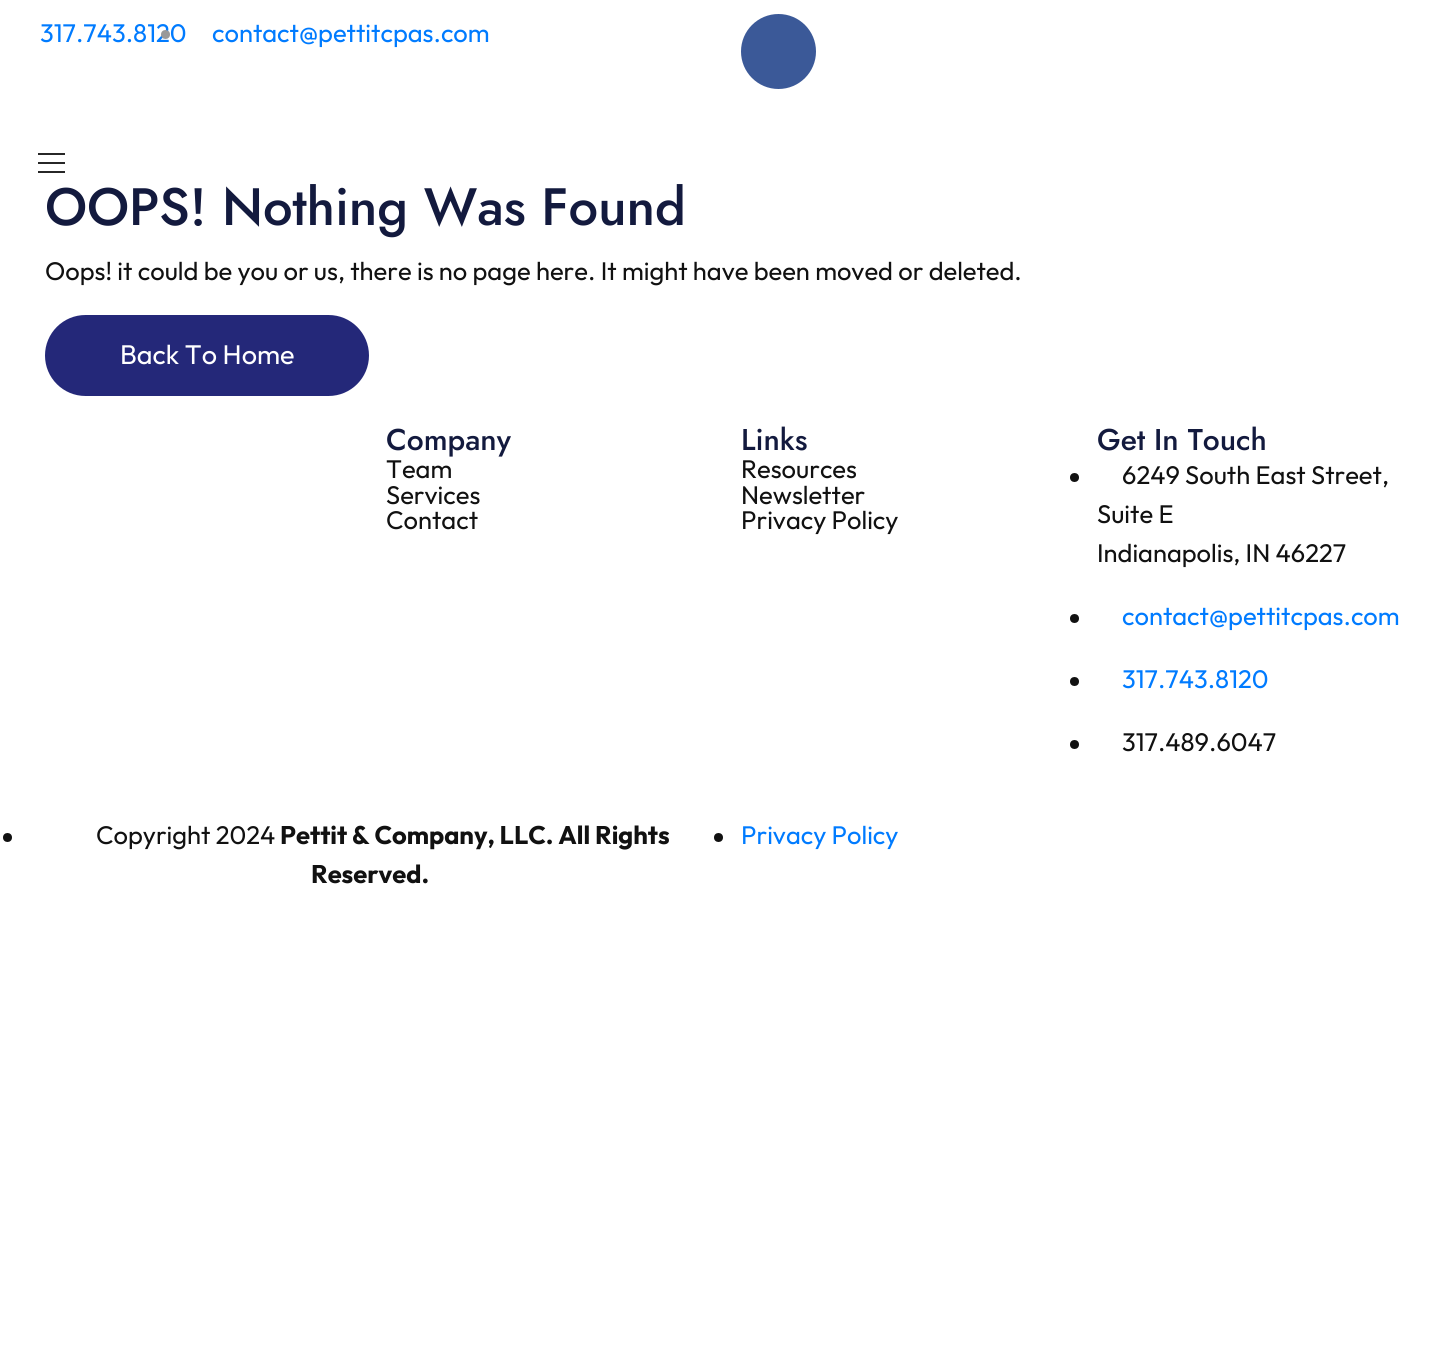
#include <cairo/cairo.h>
#include <math.h>
#include <stddef.h>


static void draw_spaced(cairo_t *cr, double x, double y, const char *s, double letter, double word) {
  cairo_move_to(cr, x, y);
  while (*s) {
    char ch[5] = {0};
    int n = 0;
    do ch[n++] = *s++; while ((*s & 0xC0) == 0x80);
    cairo_show_text(cr, ch);
    cairo_rel_move_to(cr, letter + word * (*ch == ' '), 0);
  }
}

static void rounded_rect(cairo_t *cr, double x, double y, double w, double h, double r) {
  cairo_new_sub_path(cr);
  cairo_arc(cr, x + w - r, y + h - r, r, 0, M_PI / 2);
  cairo_arc(cr, x + r, y + h - r, r, M_PI / 2, M_PI);
  cairo_arc(cr, x + r, y + r, r, M_PI, 1.5 * M_PI);
  cairo_arc(cr, x + w - r, y + r, r, 1.5 * M_PI, 2 * M_PI);
  cairo_close_path(cr);
}

static void draw(cairo_t *cr) {
  cairo_set_source_rgb(cr, 1, 1, 1);
  cairo_paint(cr);
  cairo_set_source_rgb(cr, 59 / 255.0, 89 / 255.0, 152 / 255.0);
  cairo_arc(cr, 778.5, 51.5, 37.5, 0, 2 * M_PI);
  cairo_fill(cr);
  cairo_set_source_rgb(cr, 39 / 255.0, 39 / 255.0, 39 / 255.0);
  cairo_rectangle(cr, 38, 153, 27, 2);
  cairo_fill(cr);
  cairo_rectangle(cr, 38, 162, 27, 2);
  cairo_fill(cr);
  cairo_rectangle(cr, 38, 171, 27, 2);
  cairo_fill(cr);
  cairo_set_source_rgb(cr, 36 / 255.0, 40 / 255.0, 121 / 255.0);
  rounded_rect(cr, 45, 315, 324, 81, 40.5);
  cairo_fill(cr);
  cairo_set_source_rgb(cr, 17 / 255.0, 17 / 255.0, 17 / 255.0);
  cairo_arc(cr, 1074.5, 477.5, 4.5, 0, 2 * M_PI);
  cairo_fill(cr);
  cairo_arc(cr, 1074.5, 618.5, 4.5, 0, 2 * M_PI);
  cairo_fill(cr);
  cairo_arc(cr, 1074.5, 681.5, 4.5, 0, 2 * M_PI);
  cairo_fill(cr);
  cairo_arc(cr, 1074.5, 744.5, 4.5, 0, 2 * M_PI);
  cairo_fill(cr);
  cairo_arc(cr, 7.5, 837.5, 4.5, 0, 2 * M_PI);
  cairo_fill(cr);
  cairo_arc(cr, 718.5, 837.5, 4.5, 0, 2 * M_PI);
  cairo_fill(cr);
  cairo_select_font_face(cr, "Outfit", CAIRO_FONT_SLANT_NORMAL, CAIRO_FONT_WEIGHT_NORMAL);
  cairo_set_font_size(cr, 25.5);
  cairo_set_source_rgb(cr, 0, 123 / 255.0, 1);
  cairo_move_to(cr, 40, 42);
  cairo_show_text(cr, "317.743.8120");
  cairo_set_source_rgb(cr, 153 / 255.0, 153 / 255.0, 153 / 255.0);
  cairo_new_path(cr);
  cairo_arc(cr, 165.5, 34.5, 4.5, 0, 2 * M_PI);
  cairo_fill(cr);
  cairo_set_source_rgb(cr, 0, 123 / 255.0, 1);
  cairo_move_to(cr, 212, 42);
  cairo_show_text(cr, "contact@pettitcpas.com");
  cairo_select_font_face(cr, "Jost Medium", CAIRO_FONT_SLANT_NORMAL, CAIRO_FONT_WEIGHT_NORMAL);
  cairo_set_font_size(cr, 52.5);
  cairo_set_source_rgb(cr, 19 / 255.0, 26 / 255.0, 62 / 255.0);
  draw_spaced(cr, 45, 225, "OOPS! Nothing Was Found", -0.1, 0);
  cairo_select_font_face(cr, "Outfit", CAIRO_FONT_SLANT_NORMAL, CAIRO_FONT_WEIGHT_NORMAL);
  cairo_set_font_size(cr, 25.5);
  cairo_set_source_rgb(cr, 17 / 255.0, 17 / 255.0, 17 / 255.0);
  cairo_move_to(cr, 45, 280);
  cairo_show_text(cr, "Oops! it could be you or us, there is no page here. It might have been moved or deleted.");
  cairo_set_font_size(cr, 27);
  cairo_set_source_rgb(cr, 1, 1, 1);
  cairo_move_to(cr, 120, 364);
  cairo_show_text(cr, "Back To Home");
  cairo_select_font_face(cr, "Jost Medium", CAIRO_FONT_SLANT_NORMAL, CAIRO_FONT_WEIGHT_NORMAL);
  cairo_set_font_size(cr, 30);
  cairo_set_source_rgb(cr, 19 / 255.0, 26 / 255.0, 62 / 255.0);
  cairo_move_to(cr, 386, 450);
  cairo_show_text(cr, "Company");
  cairo_select_font_face(cr, "Outfit", CAIRO_FONT_SLANT_NORMAL, CAIRO_FONT_WEIGHT_NORMAL);
  cairo_set_font_size(cr, 25.5);
  cairo_set_source_rgb(cr, 17 / 255.0, 17 / 255.0, 17 / 255.0);
  cairo_move_to(cr, 386, 478);
  cairo_show_text(cr, "Team");
  cairo_move_to(cr, 386, 504);
  cairo_show_text(cr, "Services");
  cairo_move_to(cr, 386, 529);
  cairo_show_text(cr, "Contact");
  cairo_select_font_face(cr, "Jost Medium", CAIRO_FONT_SLANT_NORMAL, CAIRO_FONT_WEIGHT_NORMAL);
  cairo_set_font_size(cr, 30);
  cairo_set_source_rgb(cr, 19 / 255.0, 26 / 255.0, 62 / 255.0);
  cairo_move_to(cr, 741, 450);
  cairo_show_text(cr, "Links");
  cairo_select_font_face(cr, "Outfit", CAIRO_FONT_SLANT_NORMAL, CAIRO_FONT_WEIGHT_NORMAL);
  cairo_set_font_size(cr, 25.5);
  cairo_set_source_rgb(cr, 17 / 255.0, 17 / 255.0, 17 / 255.0);
  cairo_move_to(cr, 741, 478);
  cairo_show_text(cr, "Resources");
  cairo_move_to(cr, 741, 504);
  cairo_show_text(cr, "Newsletter");
  cairo_move_to(cr, 741, 529);
  cairo_show_text(cr, "Privacy Policy");
  cairo_select_font_face(cr, "Jost Medium", CAIRO_FONT_SLANT_NORMAL, CAIRO_FONT_WEIGHT_NORMAL);
  cairo_set_font_size(cr, 30);
  cairo_set_source_rgb(cr, 19 / 255.0, 26 / 255.0, 62 / 255.0);
  cairo_move_to(cr, 1097, 450);
  cairo_show_text(cr, "Get In Touch");
  cairo_select_font_face(cr, "Outfit", CAIRO_FONT_SLANT_NORMAL, CAIRO_FONT_WEIGHT_NORMAL);
  cairo_set_font_size(cr, 25.5);
  cairo_set_source_rgb(cr, 17 / 255.0, 17 / 255.0, 17 / 255.0);
  cairo_move_to(cr, 1122, 484);
  cairo_show_text(cr, "6249 South East Street,");
  cairo_move_to(cr, 1097, 523);
  cairo_show_text(cr, "Suite E");
  cairo_move_to(cr, 1097, 562);
  cairo_show_text(cr, "Indianapolis, IN 46227");
  cairo_set_source_rgb(cr, 0, 123 / 255.0, 1);
  cairo_move_to(cr, 1122, 625);
  cairo_show_text(cr, "contact@pettitcpas.com");
  cairo_move_to(cr, 1122, 688);
  cairo_show_text(cr, "317.743.8120");
  cairo_set_source_rgb(cr, 17 / 255.0, 17 / 255.0, 17 / 255.0);
  cairo_move_to(cr, 1122, 751);
  cairo_show_text(cr, "317.489.6047");
  cairo_move_to(cr, 96, 844);
  cairo_show_text(cr, "Copyright 2024");
  cairo_select_font_face(cr, "Outfit", CAIRO_FONT_SLANT_NORMAL, CAIRO_FONT_WEIGHT_BOLD);
  cairo_move_to(cr, 280, 844);
  cairo_show_text(cr, "Pettit & Company, LLC. All Rights");
  cairo_move_to(cr, 311, 883);
  cairo_show_text(cr, "Reserved.");
  cairo_select_font_face(cr, "Outfit", CAIRO_FONT_SLANT_NORMAL, CAIRO_FONT_WEIGHT_NORMAL);
  cairo_set_source_rgb(cr, 0, 123 / 255.0, 1);
  cairo_move_to(cr, 741, 844);
  cairo_show_text(cr, "Privacy Policy");
}

int main(void) {
  cairo_surface_t *surface = cairo_image_surface_create(CAIRO_FORMAT_RGB24, 1452, 1350);
  cairo_t *cr = cairo_create(surface);
  cairo_font_options_t *options = cairo_font_options_create();
  cairo_font_options_set_hint_metrics(options, CAIRO_HINT_METRICS_OFF);
  cairo_font_options_set_hint_style(options, CAIRO_HINT_STYLE_NONE);
  cairo_set_font_options(cr, options);
  cairo_set_miter_limit(cr, 4);
  draw(cr);
  cairo_surface_write_to_png(surface, "out.png");
  cairo_font_options_destroy(options);
  cairo_destroy(cr);
  cairo_surface_destroy(surface);
  return 0;
}
